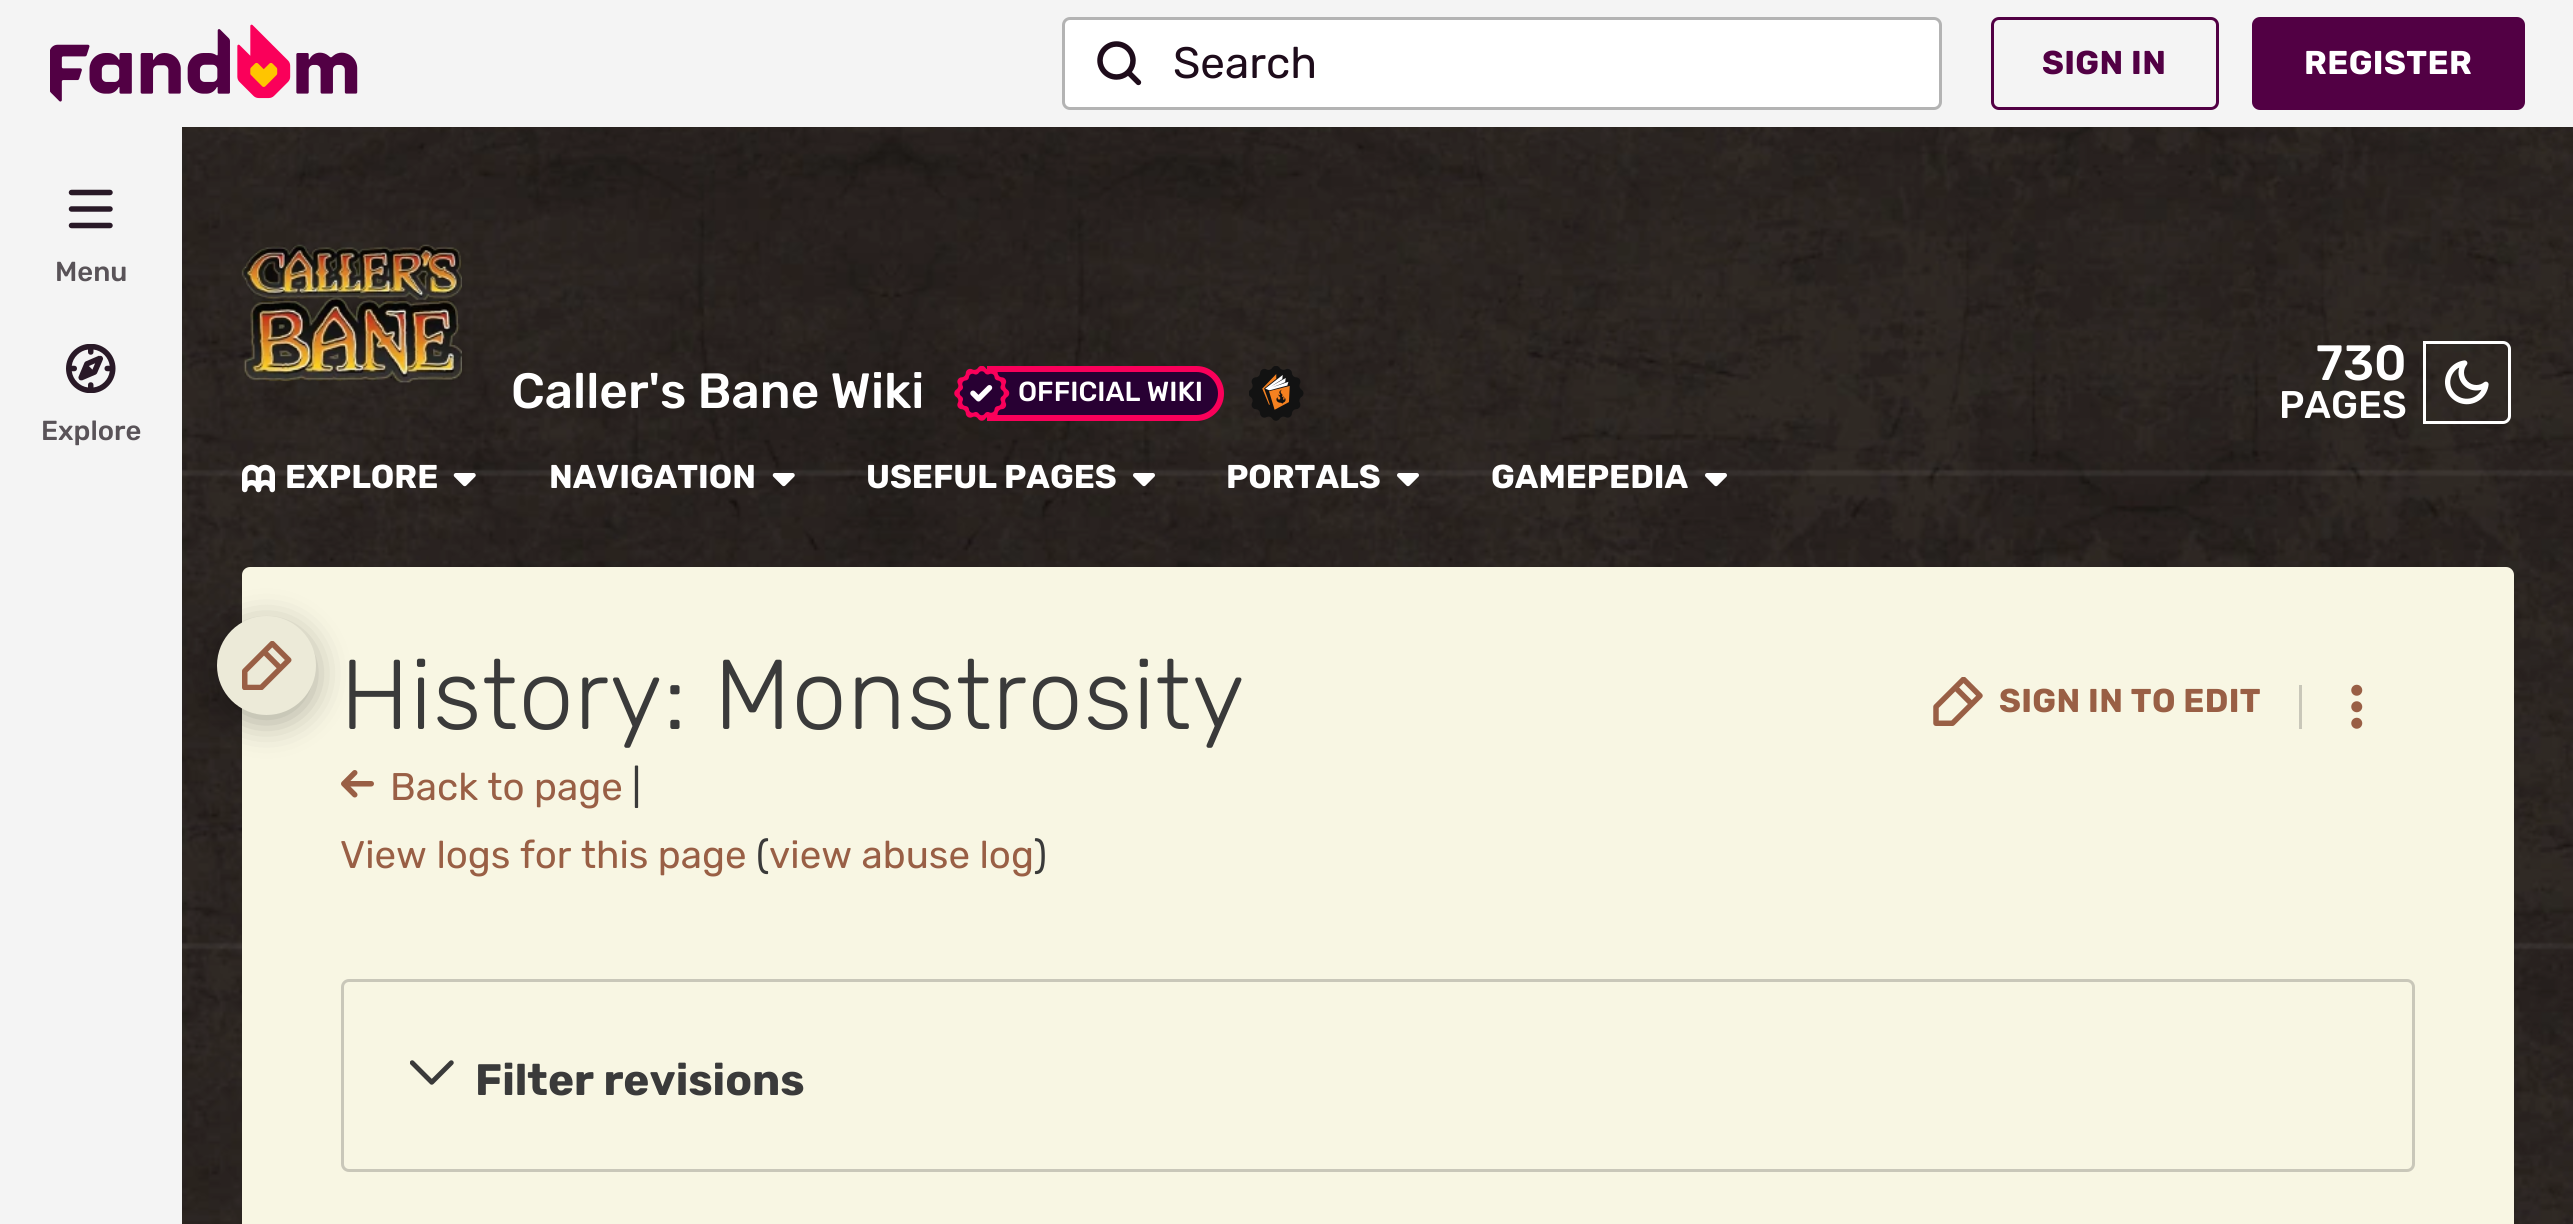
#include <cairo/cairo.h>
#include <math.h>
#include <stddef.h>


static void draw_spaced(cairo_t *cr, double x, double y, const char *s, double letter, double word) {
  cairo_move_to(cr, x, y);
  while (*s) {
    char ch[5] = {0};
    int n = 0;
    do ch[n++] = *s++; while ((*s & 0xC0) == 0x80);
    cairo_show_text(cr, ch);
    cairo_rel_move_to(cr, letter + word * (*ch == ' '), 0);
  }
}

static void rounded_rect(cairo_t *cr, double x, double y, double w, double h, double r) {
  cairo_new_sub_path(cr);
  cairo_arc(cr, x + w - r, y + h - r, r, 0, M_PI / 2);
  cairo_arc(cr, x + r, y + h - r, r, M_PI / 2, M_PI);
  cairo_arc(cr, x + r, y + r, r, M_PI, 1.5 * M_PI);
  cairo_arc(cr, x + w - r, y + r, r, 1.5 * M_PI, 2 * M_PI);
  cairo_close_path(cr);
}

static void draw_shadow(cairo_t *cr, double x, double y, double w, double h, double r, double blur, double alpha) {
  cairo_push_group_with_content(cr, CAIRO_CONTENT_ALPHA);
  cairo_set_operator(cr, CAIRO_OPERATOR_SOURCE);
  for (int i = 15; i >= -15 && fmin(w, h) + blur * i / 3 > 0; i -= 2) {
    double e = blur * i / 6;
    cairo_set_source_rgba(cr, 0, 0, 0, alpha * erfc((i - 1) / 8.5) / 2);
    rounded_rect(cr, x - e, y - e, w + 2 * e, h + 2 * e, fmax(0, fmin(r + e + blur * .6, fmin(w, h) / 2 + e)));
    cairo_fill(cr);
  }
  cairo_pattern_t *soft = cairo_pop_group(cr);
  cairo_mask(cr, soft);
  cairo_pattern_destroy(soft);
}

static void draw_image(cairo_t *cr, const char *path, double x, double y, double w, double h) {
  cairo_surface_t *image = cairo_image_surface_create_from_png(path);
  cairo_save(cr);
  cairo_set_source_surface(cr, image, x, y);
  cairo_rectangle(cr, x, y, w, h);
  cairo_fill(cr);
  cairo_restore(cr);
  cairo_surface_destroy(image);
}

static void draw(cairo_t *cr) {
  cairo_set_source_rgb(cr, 1, 1, 1);
  cairo_paint(cr);
  draw_image(cr, "images/1.png", 182, 127, 2391, 1097);
  cairo_set_source_rgb(cr, 244 / 255.0, 244 / 255.0, 244 / 255.0);
  cairo_rectangle(cr, 0, 0, 2573, 127);
  cairo_fill(cr);
  draw_image(cr, "images/2.png", 50, 24, 308, 78);
  cairo_set_source_rgb(cr, 1, 1, 1);
  rounded_rect(cr, 1063.5, 18.5, 877, 90, 6.5);
  cairo_fill_preserve(cr);
  cairo_set_source_rgb(cr, 179 / 255.0, 179 / 255.0, 179 / 255.0);
  cairo_set_line_width(cr, 3);
  cairo_stroke(cr);
  draw_image(cr, "images/3.png", 1097, 41, 45, 45);
  rounded_rect(cr, 1992.5, 18.5, 225, 90, 6.5);
  cairo_set_source_rgb(cr, 82 / 255.0, 0, 68 / 255.0);
  cairo_stroke(cr);
  rounded_rect(cr, 2253.5, 18.5, 270, 90, 6.5);
  cairo_fill_preserve(cr);
  cairo_stroke(cr);
  cairo_set_source_rgb(cr, 248 / 255.0, 246 / 255.0, 227 / 255.0);
  rounded_rect(cr, 242, 567, 2272, 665, 8);
  cairo_fill(cr);
  draw_image(cr, "images/17.png", 341, 770, 33, 28);
  cairo_set_source_rgb(cr, 0, 0, 0);
  draw_shadow(cr, 217, 624, 99, 99, 49.5, 16.5, 0.3);
  cairo_set_source_rgb(cr, 244 / 255.0, 244 / 255.0, 244 / 255.0);
  cairo_rectangle(cr, 0, 127, 182, 1097);
  cairo_fill(cr);
  draw_image(cr, "images/4.png", 68, 189, 45, 40);
  draw_image(cr, "images/5.png", 66, 344, 50, 49);
  draw_image(cr, "images/6.png", 241, 244, 221, 139);
  cairo_set_source_rgb(cr, 40 / 255.0, 0, 51 / 255.0);
  cairo_new_path(cr);
  cairo_move_to(cr, 990, 369);
  cairo_line_to(cr, 1196.5, 369);
  cairo_curve_to(cr, 1210, 369, 1221, 380, 1221, 393.5);
  cairo_curve_to(cr, 1221, 407, 1210, 418, 1196.5, 418);
  cairo_line_to(cr, 990, 418);
  cairo_close_path(cr);
  cairo_fill_preserve(cr);
  cairo_set_source_rgb(cr, 250 / 255.0, 0, 90 / 255.0);
  cairo_set_line_width(cr, 6);
  cairo_stroke(cr);
  draw_image(cr, "images/7.png", 954, 366, 56, 55);
  draw_image(cr, "images/8.png", 1249, 366, 55, 55);
  cairo_new_path(cr);
  cairo_move_to(cr, 2424.5, 342.5);
  cairo_line_to(cr, 2503, 342.5);
  cairo_curve_to(cr, 2506.5, 342.5, 2509.5, 345.5, 2509.5, 349);
  cairo_line_to(cr, 2509.5, 416);
  cairo_curve_to(cr, 2509.5, 419.5, 2506.5, 422.5, 2503, 422.5);
  cairo_line_to(cr, 2424.5, 422.5);
  cairo_close_path(cr);
  cairo_set_source_rgb(cr, 1, 1, 1);
  cairo_set_line_width(cr, 3);
  cairo_stroke(cr);
  draw_image(cr, "images/9.png", 2445, 360, 44, 45);
  draw_image(cr, "images/10.png", 242, 464, 33, 29);
  draw_image(cr, "images/11.png", 453, 473, 23, 14);
  draw_image(cr, "images/12.png", 772, 473, 23, 14);
  draw_image(cr, "images/13.png", 1133, 473, 22, 14);
  draw_image(cr, "images/14.png", 1397, 473, 22, 14);
  draw_image(cr, "images/15.png", 1705, 473, 22, 14);
  cairo_set_source_rgb(cr, 236 / 255.0, 234 / 255.0, 216 / 255.0);
  cairo_arc(cr, 266.5, 665.5, 49.5, 0, 2 * M_PI);
  cairo_fill(cr);
  draw_image(cr, "images/16.png", 242, 641, 50, 49);
  draw_image(cr, "images/18.png", 1933, 677, 50, 49);
  cairo_set_source_rgb(cr, 201 / 255.0, 199 / 255.0, 185 / 255.0);
  cairo_rectangle(cr, 2299, 685, 3, 44);
  cairo_fill(cr);
  draw_image(cr, "images/19.png", 2351, 684, 12, 45);
  rounded_rect(cr, 342.5, 980.5, 2071, 190, 6.5);
  cairo_stroke(cr);
  draw_image(cr, "images/20.png", 410, 1060, 44, 25);
  cairo_select_font_face(cr, "Rubik", CAIRO_FONT_SLANT_NORMAL, CAIRO_FONT_WEIGHT_NORMAL);
  cairo_set_font_size(cr, 44);
  cairo_set_source_rgb(cr, 30 / 255.0, 12 / 255.0, 27 / 255.0);
  cairo_move_to(cr, 1173, 78);
  cairo_show_text(cr, "Search");
  cairo_select_font_face(cr, "Rubik", CAIRO_FONT_SLANT_NORMAL, CAIRO_FONT_WEIGHT_BOLD);
  cairo_set_font_size(cr, 33);
  cairo_set_source_rgb(cr, 82 / 255.0, 0, 68 / 255.0);
  draw_spaced(cr, 2042, 74, "SIGN IN", 0.4, 0);
  cairo_set_source_rgb(cr, 1, 1, 1);
  draw_spaced(cr, 2304, 74, "REGISTER", 0.4, 0);
  cairo_select_font_face(cr, "Rubik Medium", CAIRO_FONT_SLANT_NORMAL, CAIRO_FONT_WEIGHT_NORMAL);
  cairo_set_font_size(cr, 27.5);
  cairo_set_source_rgb(cr, 89 / 255.0, 83 / 255.0, 88 / 255.0);
  cairo_move_to(cr, 55, 281);
  cairo_show_text(cr, "Menu");
  cairo_move_to(cr, 41, 440);
  cairo_show_text(cr, "Explore");
  cairo_set_font_size(cr, 49.5);
  cairo_set_source_rgb(cr, 1, 1, 1);
  cairo_move_to(cr, 511, 408);
  cairo_show_text(cr, "Caller's Bane Wiki");
  cairo_set_font_size(cr, 27.5);
  cairo_move_to(cr, 1018, 401);
  cairo_show_text(cr, "OFFICIAL WIKI");
  cairo_set_font_size(cr, 49.5);
  cairo_move_to(cr, 2316, 380);
  cairo_show_text(cr, "730");
  cairo_set_font_size(cr, 38.5);
  cairo_move_to(cr, 2279, 418);
  cairo_show_text(cr, "PAGES");
  cairo_save(cr);
  cairo_rectangle(cr, 286, 459, 151, 42);
  cairo_clip(cr);
  cairo_select_font_face(cr, "Rubik", CAIRO_FONT_SLANT_NORMAL, CAIRO_FONT_WEIGHT_BOLD);
  cairo_set_font_size(cr, 33);
  cairo_move_to(cr, 285, 488);
  cairo_show_text(cr, "EXPLORE");
  cairo_restore(cr);
  cairo_select_font_face(cr, "Rubik", CAIRO_FONT_SLANT_NORMAL, CAIRO_FONT_WEIGHT_BOLD);
  cairo_set_font_size(cr, 33);
  cairo_move_to(cr, 549, 488);
  cairo_show_text(cr, "NAVIGATION");
  cairo_move_to(cr, 866, 488);
  cairo_show_text(cr, "USEFUL PAGES");
  cairo_move_to(cr, 1226, 488);
  cairo_show_text(cr, "PORTALS");
  cairo_move_to(cr, 1491, 488);
  cairo_show_text(cr, "GAMEPEDIA");
  cairo_select_font_face(cr, "Rubik Light", CAIRO_FONT_SLANT_NORMAL, CAIRO_FONT_WEIGHT_NORMAL);
  cairo_set_font_size(cr, 99);
  cairo_set_source_rgb(cr, 58 / 255.0, 58 / 255.0, 58 / 255.0);
  draw_spaced(cr, 340, 729, "History: Monstrosity", 0.7, 0);
  cairo_select_font_face(cr, "Rubik", CAIRO_FONT_SLANT_NORMAL, CAIRO_FONT_WEIGHT_NORMAL);
  cairo_set_font_size(cr, 38.5);
  cairo_set_source_rgb(cr, 153 / 255.0, 95 / 255.0, 69 / 255.0);
  cairo_move_to(cr, 390, 800);
  cairo_show_text(cr, "Back to page");
  cairo_set_source_rgb(cr, 58 / 255.0, 58 / 255.0, 58 / 255.0);
  cairo_move_to(cr, 632, 800);
  cairo_show_text(cr, "|");
  cairo_set_source_rgb(cr, 153 / 255.0, 95 / 255.0, 69 / 255.0);
  cairo_move_to(cr, 340, 868);
  cairo_show_text(cr, "View logs for this page");
  cairo_set_source_rgb(cr, 58 / 255.0, 58 / 255.0, 58 / 255.0);
  cairo_move_to(cr, 756, 868);
  cairo_show_text(cr, "(");
  cairo_set_source_rgb(cr, 153 / 255.0, 95 / 255.0, 69 / 255.0);
  cairo_move_to(cr, 769, 868);
  cairo_show_text(cr, "view abuse log");
  cairo_set_source_rgb(cr, 58 / 255.0, 58 / 255.0, 58 / 255.0);
  cairo_move_to(cr, 1034, 868);
  cairo_show_text(cr, ")");
  cairo_select_font_face(cr, "Rubik", CAIRO_FONT_SLANT_NORMAL, CAIRO_FONT_WEIGHT_BOLD);
  cairo_set_font_size(cr, 33);
  cairo_set_source_rgb(cr, 153 / 255.0, 95 / 255.0, 69 / 255.0);
  draw_spaced(cr, 1999, 712, "SIGN IN TO EDIT", 0.4, 0);
  cairo_set_font_size(cr, 44);
  cairo_set_source_rgb(cr, 58 / 255.0, 58 / 255.0, 58 / 255.0);
  cairo_move_to(cr, 475, 1095);
  cairo_show_text(cr, "Filter revisions");
}

int main(void) {
  cairo_surface_t *surface = cairo_image_surface_create(CAIRO_FORMAT_RGB24, 2573, 1224);
  cairo_t *cr = cairo_create(surface);
  cairo_font_options_t *options = cairo_font_options_create();
  cairo_font_options_set_hint_metrics(options, CAIRO_HINT_METRICS_OFF);
  cairo_font_options_set_hint_style(options, CAIRO_HINT_STYLE_NONE);
  cairo_set_font_options(cr, options);
  cairo_set_miter_limit(cr, 4);
  draw(cr);
  cairo_surface_write_to_png(surface, "out.png");
  cairo_font_options_destroy(options);
  cairo_destroy(cr);
  cairo_surface_destroy(surface);
  return 0;
}
